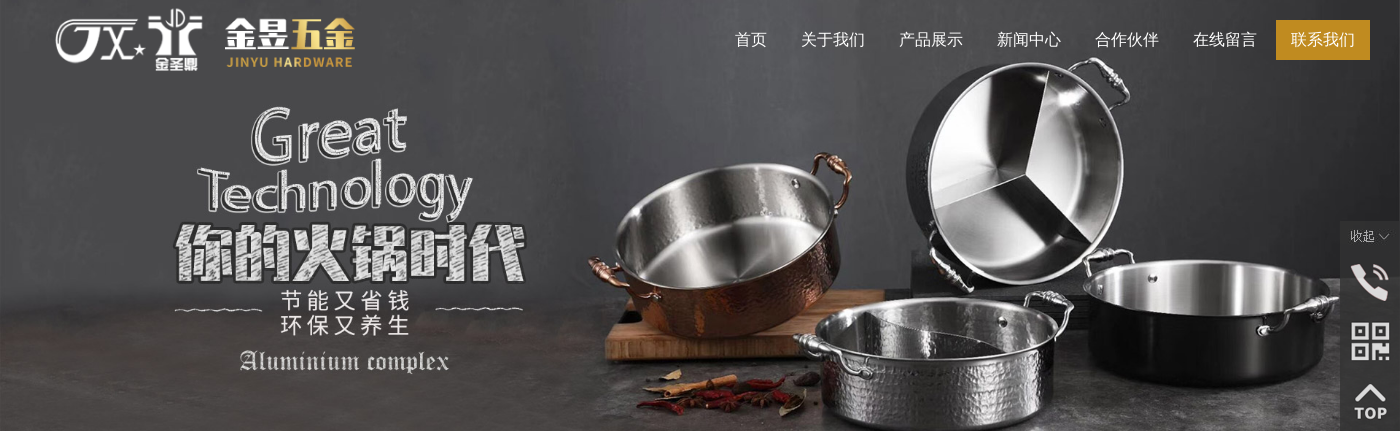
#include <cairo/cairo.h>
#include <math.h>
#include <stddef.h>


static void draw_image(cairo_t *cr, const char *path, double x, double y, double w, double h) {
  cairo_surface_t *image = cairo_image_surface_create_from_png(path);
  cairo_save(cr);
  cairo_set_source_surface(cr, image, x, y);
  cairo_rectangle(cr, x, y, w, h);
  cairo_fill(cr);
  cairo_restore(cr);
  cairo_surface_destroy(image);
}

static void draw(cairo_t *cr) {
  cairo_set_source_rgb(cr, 1, 1, 1);
  cairo_paint(cr);
  draw_image(cr, "images/1.png", 0, 0, 1400, 431);
  draw_image(cr, "images/2.png", 55, 8, 300, 63);
  cairo_set_source_rgb(cr, 192 / 255.0, 139 / 255.0, 32 / 255.0);
  cairo_rectangle(cr, 1276, 20, 94, 40);
  cairo_fill(cr);
  draw_image(cr, "images/3.png", 1340, 221, 59, 30);
  draw_image(cr, "images/4.png", 1340, 251, 60, 60);
  draw_image(cr, "images/5.png", 1340, 311, 60, 60);
  draw_image(cr, "images/6.png", 1340, 371, 60, 60);
  cairo_select_font_face(cr, "WenQuanYi Zen Hei Medium", CAIRO_FONT_SLANT_NORMAL, CAIRO_FONT_WEIGHT_NORMAL);
  cairo_set_font_size(cr, 16);
  cairo_set_source_rgb(cr, 1, 1, 1);
  cairo_move_to(cr, 735, 45);
  cairo_show_text(cr, "首页");
  cairo_move_to(cr, 801, 45);
  cairo_show_text(cr, "关于我们");
  cairo_move_to(cr, 899, 45);
  cairo_show_text(cr, "产品展示");
  cairo_move_to(cr, 997, 45);
  cairo_show_text(cr, "新闻中心");
  cairo_move_to(cr, 1095, 45);
  cairo_show_text(cr, "合作伙伴");
  cairo_move_to(cr, 1193, 45);
  cairo_show_text(cr, "在线留言");
  cairo_move_to(cr, 1291, 45);
  cairo_show_text(cr, "联系我们");
}

int main(void) {
  cairo_surface_t *surface = cairo_image_surface_create(CAIRO_FORMAT_RGB24, 1400, 431);
  cairo_t *cr = cairo_create(surface);
  cairo_font_options_t *options = cairo_font_options_create();
  cairo_font_options_set_hint_metrics(options, CAIRO_HINT_METRICS_OFF);
  cairo_font_options_set_hint_style(options, CAIRO_HINT_STYLE_NONE);
  cairo_set_font_options(cr, options);
  cairo_set_miter_limit(cr, 4);
  draw(cr);
  cairo_surface_write_to_png(surface, "out.png");
  cairo_font_options_destroy(options);
  cairo_destroy(cr);
  cairo_surface_destroy(surface);
  return 0;
}
